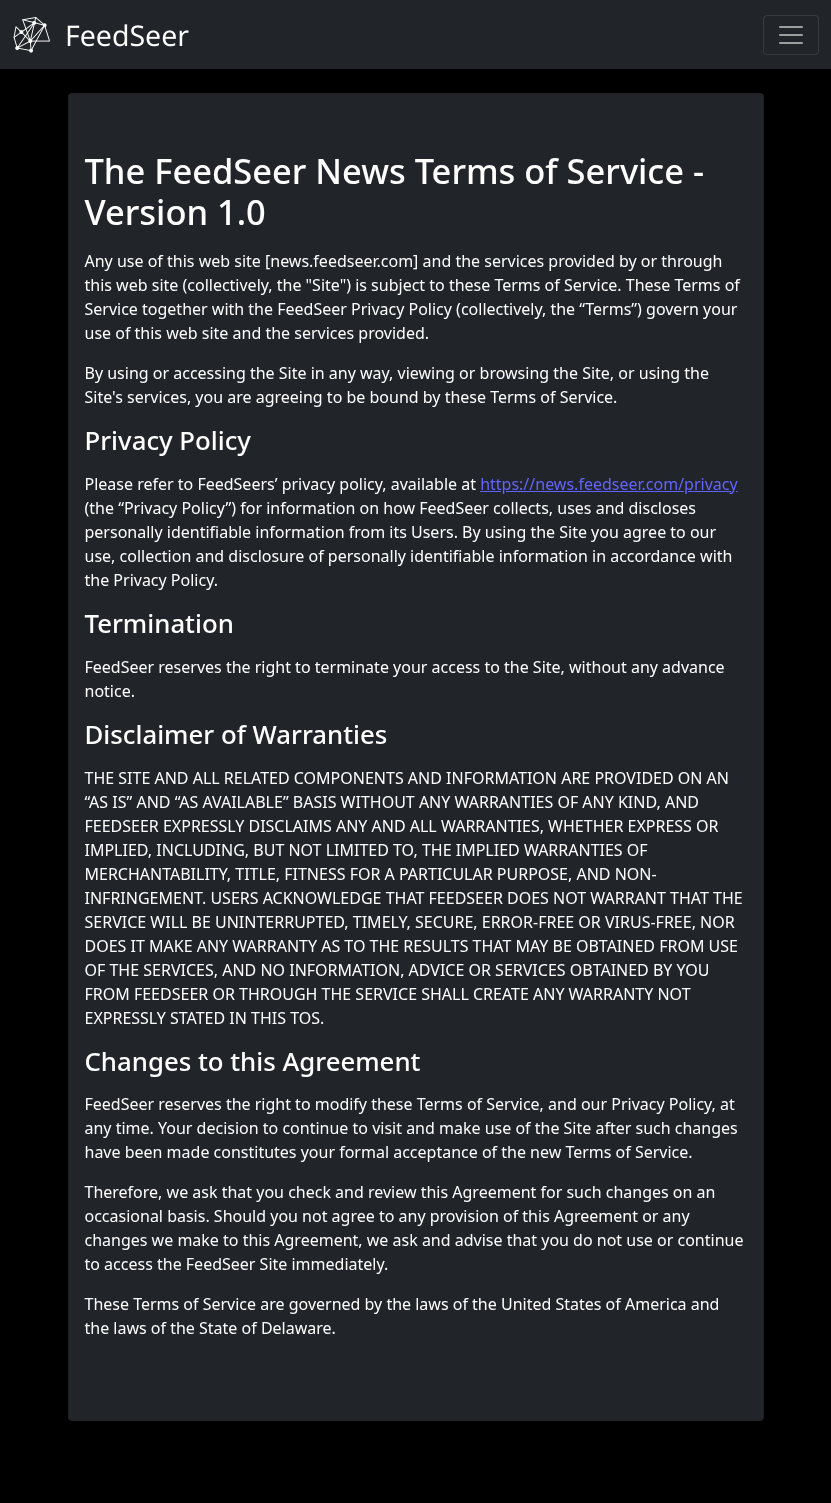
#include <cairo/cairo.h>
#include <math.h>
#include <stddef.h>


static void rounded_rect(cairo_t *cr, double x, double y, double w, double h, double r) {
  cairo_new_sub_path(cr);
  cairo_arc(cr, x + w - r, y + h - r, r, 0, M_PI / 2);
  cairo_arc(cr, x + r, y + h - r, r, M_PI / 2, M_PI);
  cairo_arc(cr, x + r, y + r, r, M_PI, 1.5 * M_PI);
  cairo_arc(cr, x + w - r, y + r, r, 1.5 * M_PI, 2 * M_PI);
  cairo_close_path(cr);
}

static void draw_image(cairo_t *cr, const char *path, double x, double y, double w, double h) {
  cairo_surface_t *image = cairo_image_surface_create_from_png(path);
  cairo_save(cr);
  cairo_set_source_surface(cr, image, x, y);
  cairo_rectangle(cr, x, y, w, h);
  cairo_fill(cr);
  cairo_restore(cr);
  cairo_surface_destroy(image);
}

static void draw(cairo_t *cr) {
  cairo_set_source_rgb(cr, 0, 0, 0);
  cairo_paint(cr);
  cairo_set_source_rgb(cr, 33 / 255.0, 37 / 255.0, 41 / 255.0);
  cairo_rectangle(cr, 0, 0, 831, 69);
  cairo_fill(cr);
  draw_image(cr, "images/1.png", 13, 17, 37, 36);
  rounded_rect(cr, 763.5, 15.5, 55, 39, 3.5);
  cairo_set_source_rgb(cr, 55 / 255.0, 59 / 255.0, 62 / 255.0);
  cairo_set_line_width(cr, 1);
  cairo_stroke(cr);
  draw_image(cr, "images/2.png", 779, 26, 24, 18);
  draw_image(cr, "images/3.png", 68, 93, 696, 1328);
  cairo_select_font_face(cr, "Noto Sans", CAIRO_FONT_SLANT_NORMAL, CAIRO_FONT_WEIGHT_NORMAL);
  cairo_set_font_size(cr, 28.5);
  cairo_set_source_rgb(cr, 1, 1, 1);
  cairo_move_to(cr, 65, 46);
  cairo_show_text(cr, "FeedSeer");
}

int main(void) {
  cairo_surface_t *surface = cairo_image_surface_create(CAIRO_FORMAT_RGB24, 831, 1503);
  cairo_t *cr = cairo_create(surface);
  cairo_font_options_t *options = cairo_font_options_create();
  cairo_font_options_set_hint_metrics(options, CAIRO_HINT_METRICS_OFF);
  cairo_font_options_set_hint_style(options, CAIRO_HINT_STYLE_NONE);
  cairo_set_font_options(cr, options);
  cairo_set_miter_limit(cr, 4);
  draw(cr);
  cairo_surface_write_to_png(surface, "out.png");
  cairo_font_options_destroy(options);
  cairo_destroy(cr);
  cairo_surface_destroy(surface);
  return 0;
}
